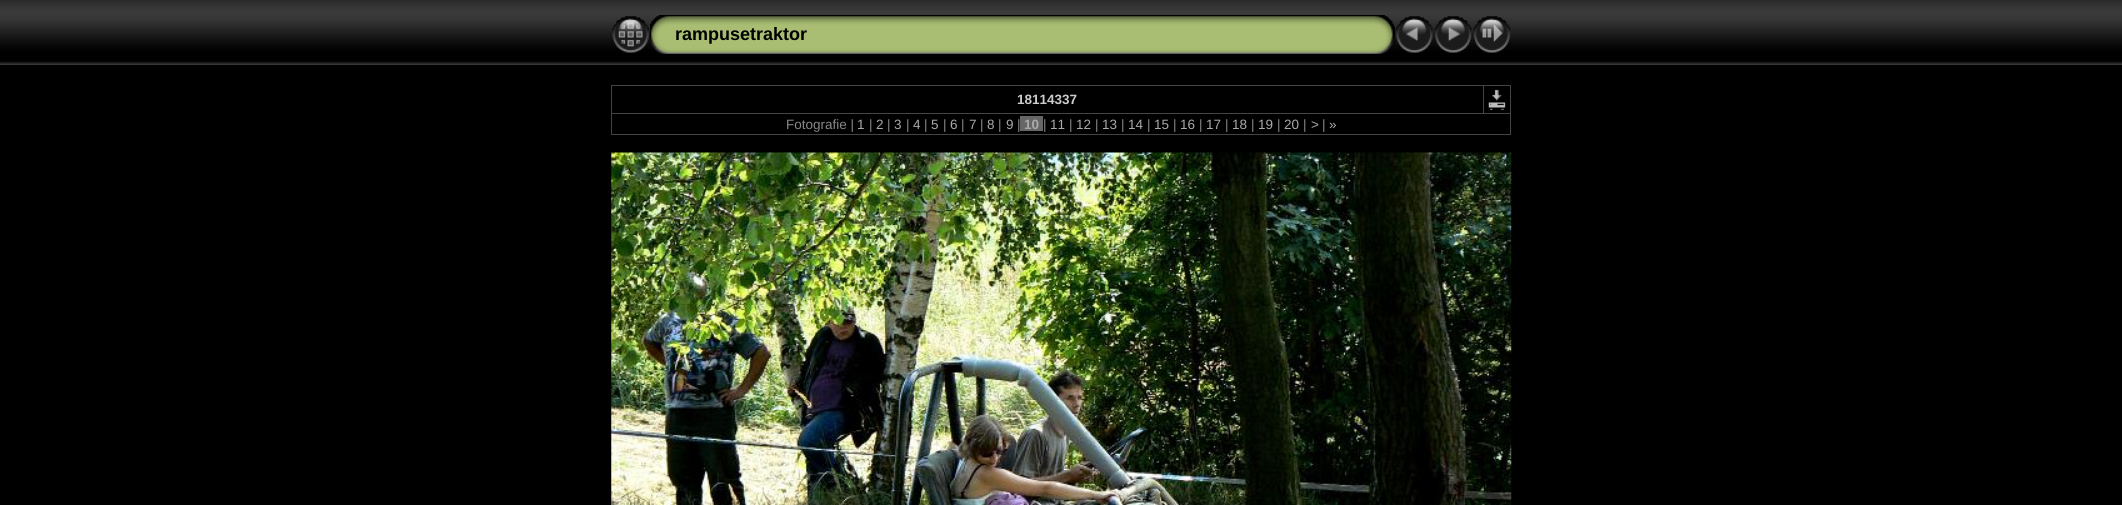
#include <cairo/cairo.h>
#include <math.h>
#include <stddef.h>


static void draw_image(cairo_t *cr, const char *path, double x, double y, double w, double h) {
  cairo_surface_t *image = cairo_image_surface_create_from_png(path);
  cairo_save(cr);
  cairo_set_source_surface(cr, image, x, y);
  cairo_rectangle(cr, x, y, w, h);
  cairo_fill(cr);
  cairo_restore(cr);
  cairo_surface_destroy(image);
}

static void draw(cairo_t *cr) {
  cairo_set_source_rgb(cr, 0, 0, 0);
  cairo_paint(cr);
  draw_image(cr, "images/1.png", 0, 0, 2122, 65);
  draw_image(cr, "images/2.png", 612, 16, 37, 37);
  draw_image(cr, "images/3.png", 650, 15, 25, 39);
  draw_image(cr, "images/4.png", 675, 15, 695, 39);
  draw_image(cr, "images/5.png", 1370, 15, 25, 39);
  draw_image(cr, "images/6.png", 1396, 16, 37, 37);
  draw_image(cr, "images/7.png", 1435, 16, 37, 37);
  draw_image(cr, "images/8.png", 1473, 16, 38, 37);
  cairo_set_source_rgb(cr, 68 / 255.0, 68 / 255.0, 68 / 255.0);
  cairo_rectangle(cr, 611, 85, 900, 1);
  cairo_fill(cr);
  cairo_rectangle(cr, 1510, 85, 1, 50);
  cairo_fill(cr);
  cairo_rectangle(cr, 611, 134, 900, 1);
  cairo_fill(cr);
  cairo_rectangle(cr, 611, 85, 1, 50);
  cairo_fill(cr);
  cairo_rectangle(cr, 611, 113, 900, 1);
  cairo_fill(cr);
  cairo_rectangle(cr, 1483, 85, 1, 29);
  cairo_fill(cr);
  draw_image(cr, "images/9.png", 1488, 89, 18, 21);
  cairo_set_source_rgb(cr, 102 / 255.0, 102 / 255.0, 102 / 255.0);
  cairo_rectangle(cr, 1020, 116, 23, 15);
  cairo_fill(cr);
  draw_image(cr, "images/10.png", 611, 152, 901, 353);
  cairo_select_font_face(cr, "Liberation Sans", CAIRO_FONT_SLANT_NORMAL, CAIRO_FONT_WEIGHT_BOLD);
  cairo_set_font_size(cr, 18);
  cairo_set_source_rgb(cr, 0, 0, 0);
  cairo_move_to(cr, 675, 40);
  cairo_show_text(cr, "rampusetraktor");
  cairo_set_font_size(cr, 13.5);
  cairo_set_source_rgb(cr, 204 / 255.0, 204 / 255.0, 204 / 255.0);
  cairo_move_to(cr, 1017, 104);
  cairo_show_text(cr, "18114337");
  cairo_select_font_face(cr, "Liberation Sans", CAIRO_FONT_SLANT_NORMAL, CAIRO_FONT_WEIGHT_NORMAL);
  cairo_set_source_rgb(cr, 136 / 255.0, 136 / 255.0, 136 / 255.0);
  cairo_move_to(cr, 786, 129);
  cairo_show_text(cr, "Fotografie |");
  cairo_set_source_rgb(cr, 170 / 255.0, 170 / 255.0, 170 / 255.0);
  cairo_move_to(cr, 857, 129);
  cairo_show_text(cr, "1");
  cairo_set_source_rgb(cr, 136 / 255.0, 136 / 255.0, 136 / 255.0);
  cairo_move_to(cr, 869, 129);
  cairo_show_text(cr, "|");
  cairo_set_source_rgb(cr, 170 / 255.0, 170 / 255.0, 170 / 255.0);
  cairo_move_to(cr, 876, 129);
  cairo_show_text(cr, "2");
  cairo_set_source_rgb(cr, 136 / 255.0, 136 / 255.0, 136 / 255.0);
  cairo_move_to(cr, 887, 129);
  cairo_show_text(cr, "|");
  cairo_set_source_rgb(cr, 170 / 255.0, 170 / 255.0, 170 / 255.0);
  cairo_move_to(cr, 894, 129);
  cairo_show_text(cr, "3");
  cairo_set_source_rgb(cr, 136 / 255.0, 136 / 255.0, 136 / 255.0);
  cairo_move_to(cr, 906, 129);
  cairo_show_text(cr, "|");
  cairo_set_source_rgb(cr, 170 / 255.0, 170 / 255.0, 170 / 255.0);
  cairo_move_to(cr, 913, 129);
  cairo_show_text(cr, "4");
  cairo_set_source_rgb(cr, 136 / 255.0, 136 / 255.0, 136 / 255.0);
  cairo_move_to(cr, 924, 129);
  cairo_show_text(cr, "|");
  cairo_set_source_rgb(cr, 170 / 255.0, 170 / 255.0, 170 / 255.0);
  cairo_move_to(cr, 931, 129);
  cairo_show_text(cr, "5");
  cairo_set_source_rgb(cr, 136 / 255.0, 136 / 255.0, 136 / 255.0);
  cairo_move_to(cr, 943, 129);
  cairo_show_text(cr, "|");
  cairo_set_source_rgb(cr, 170 / 255.0, 170 / 255.0, 170 / 255.0);
  cairo_move_to(cr, 950, 129);
  cairo_show_text(cr, "6");
  cairo_set_source_rgb(cr, 136 / 255.0, 136 / 255.0, 136 / 255.0);
  cairo_move_to(cr, 961, 129);
  cairo_show_text(cr, "|");
  cairo_set_source_rgb(cr, 170 / 255.0, 170 / 255.0, 170 / 255.0);
  cairo_move_to(cr, 969, 129);
  cairo_show_text(cr, "7");
  cairo_set_source_rgb(cr, 136 / 255.0, 136 / 255.0, 136 / 255.0);
  cairo_move_to(cr, 980, 129);
  cairo_show_text(cr, "|");
  cairo_set_source_rgb(cr, 170 / 255.0, 170 / 255.0, 170 / 255.0);
  cairo_move_to(cr, 987, 129);
  cairo_show_text(cr, "8");
  cairo_set_source_rgb(cr, 136 / 255.0, 136 / 255.0, 136 / 255.0);
  cairo_move_to(cr, 998, 129);
  cairo_show_text(cr, "|");
  cairo_set_source_rgb(cr, 170 / 255.0, 170 / 255.0, 170 / 255.0);
  cairo_move_to(cr, 1006, 129);
  cairo_show_text(cr, "9");
  cairo_set_source_rgb(cr, 136 / 255.0, 136 / 255.0, 136 / 255.0);
  cairo_move_to(cr, 1017, 129);
  cairo_show_text(cr, "|");
  cairo_select_font_face(cr, "Liberation Sans", CAIRO_FONT_SLANT_NORMAL, CAIRO_FONT_WEIGHT_BOLD);
  cairo_set_source_rgb(cr, 170 / 255.0, 170 / 255.0, 170 / 255.0);
  cairo_move_to(cr, 1024, 129);
  cairo_show_text(cr, "10");
  cairo_select_font_face(cr, "Liberation Sans", CAIRO_FONT_SLANT_NORMAL, CAIRO_FONT_WEIGHT_NORMAL);
  cairo_set_source_rgb(cr, 136 / 255.0, 136 / 255.0, 136 / 255.0);
  cairo_move_to(cr, 1043, 129);
  cairo_show_text(cr, "|");
  cairo_set_source_rgb(cr, 170 / 255.0, 170 / 255.0, 170 / 255.0);
  cairo_move_to(cr, 1050, 129);
  cairo_show_text(cr, "11");
  cairo_set_source_rgb(cr, 136 / 255.0, 136 / 255.0, 136 / 255.0);
  cairo_move_to(cr, 1069, 129);
  cairo_show_text(cr, "|");
  cairo_set_source_rgb(cr, 170 / 255.0, 170 / 255.0, 170 / 255.0);
  cairo_move_to(cr, 1076, 129);
  cairo_show_text(cr, "12");
  cairo_set_source_rgb(cr, 136 / 255.0, 136 / 255.0, 136 / 255.0);
  cairo_move_to(cr, 1095, 129);
  cairo_show_text(cr, "|");
  cairo_set_source_rgb(cr, 170 / 255.0, 170 / 255.0, 170 / 255.0);
  cairo_move_to(cr, 1102, 129);
  cairo_show_text(cr, "13");
  cairo_set_source_rgb(cr, 136 / 255.0, 136 / 255.0, 136 / 255.0);
  cairo_move_to(cr, 1121, 129);
  cairo_show_text(cr, "|");
  cairo_set_source_rgb(cr, 170 / 255.0, 170 / 255.0, 170 / 255.0);
  cairo_move_to(cr, 1128, 129);
  cairo_show_text(cr, "14");
  cairo_set_source_rgb(cr, 136 / 255.0, 136 / 255.0, 136 / 255.0);
  cairo_move_to(cr, 1147, 129);
  cairo_show_text(cr, "|");
  cairo_set_source_rgb(cr, 170 / 255.0, 170 / 255.0, 170 / 255.0);
  cairo_move_to(cr, 1154, 129);
  cairo_show_text(cr, "15");
  cairo_set_source_rgb(cr, 136 / 255.0, 136 / 255.0, 136 / 255.0);
  cairo_move_to(cr, 1173, 129);
  cairo_show_text(cr, "|");
  cairo_set_source_rgb(cr, 170 / 255.0, 170 / 255.0, 170 / 255.0);
  cairo_move_to(cr, 1180, 129);
  cairo_show_text(cr, "16");
  cairo_set_source_rgb(cr, 136 / 255.0, 136 / 255.0, 136 / 255.0);
  cairo_move_to(cr, 1199, 129);
  cairo_show_text(cr, "|");
  cairo_set_source_rgb(cr, 170 / 255.0, 170 / 255.0, 170 / 255.0);
  cairo_move_to(cr, 1206, 129);
  cairo_show_text(cr, "17");
  cairo_set_source_rgb(cr, 136 / 255.0, 136 / 255.0, 136 / 255.0);
  cairo_move_to(cr, 1225, 129);
  cairo_show_text(cr, "|");
  cairo_set_source_rgb(cr, 170 / 255.0, 170 / 255.0, 170 / 255.0);
  cairo_move_to(cr, 1232, 129);
  cairo_show_text(cr, "18");
  cairo_set_source_rgb(cr, 136 / 255.0, 136 / 255.0, 136 / 255.0);
  cairo_move_to(cr, 1251, 129);
  cairo_show_text(cr, "|");
  cairo_set_source_rgb(cr, 170 / 255.0, 170 / 255.0, 170 / 255.0);
  cairo_move_to(cr, 1258, 129);
  cairo_show_text(cr, "19");
  cairo_set_source_rgb(cr, 136 / 255.0, 136 / 255.0, 136 / 255.0);
  cairo_move_to(cr, 1277, 129);
  cairo_show_text(cr, "|");
  cairo_set_source_rgb(cr, 170 / 255.0, 170 / 255.0, 170 / 255.0);
  cairo_move_to(cr, 1284, 129);
  cairo_show_text(cr, "20");
  cairo_set_source_rgb(cr, 136 / 255.0, 136 / 255.0, 136 / 255.0);
  cairo_move_to(cr, 1303, 129);
  cairo_show_text(cr, "|");
  cairo_set_source_rgb(cr, 170 / 255.0, 170 / 255.0, 170 / 255.0);
  cairo_move_to(cr, 1311, 129);
  cairo_show_text(cr, ">");
  cairo_set_source_rgb(cr, 136 / 255.0, 136 / 255.0, 136 / 255.0);
  cairo_move_to(cr, 1322, 129);
  cairo_show_text(cr, "|");
  cairo_set_source_rgb(cr, 170 / 255.0, 170 / 255.0, 170 / 255.0);
  cairo_move_to(cr, 1329, 129);
  cairo_show_text(cr, "»");
}

int main(void) {
  cairo_surface_t *surface = cairo_image_surface_create(CAIRO_FORMAT_RGB24, 2122, 505);
  cairo_t *cr = cairo_create(surface);
  cairo_font_options_t *options = cairo_font_options_create();
  cairo_font_options_set_hint_metrics(options, CAIRO_HINT_METRICS_OFF);
  cairo_font_options_set_hint_style(options, CAIRO_HINT_STYLE_NONE);
  cairo_set_font_options(cr, options);
  cairo_set_miter_limit(cr, 4);
  draw(cr);
  cairo_surface_write_to_png(surface, "out.png");
  cairo_font_options_destroy(options);
  cairo_destroy(cr);
  cairo_surface_destroy(surface);
  return 0;
}
